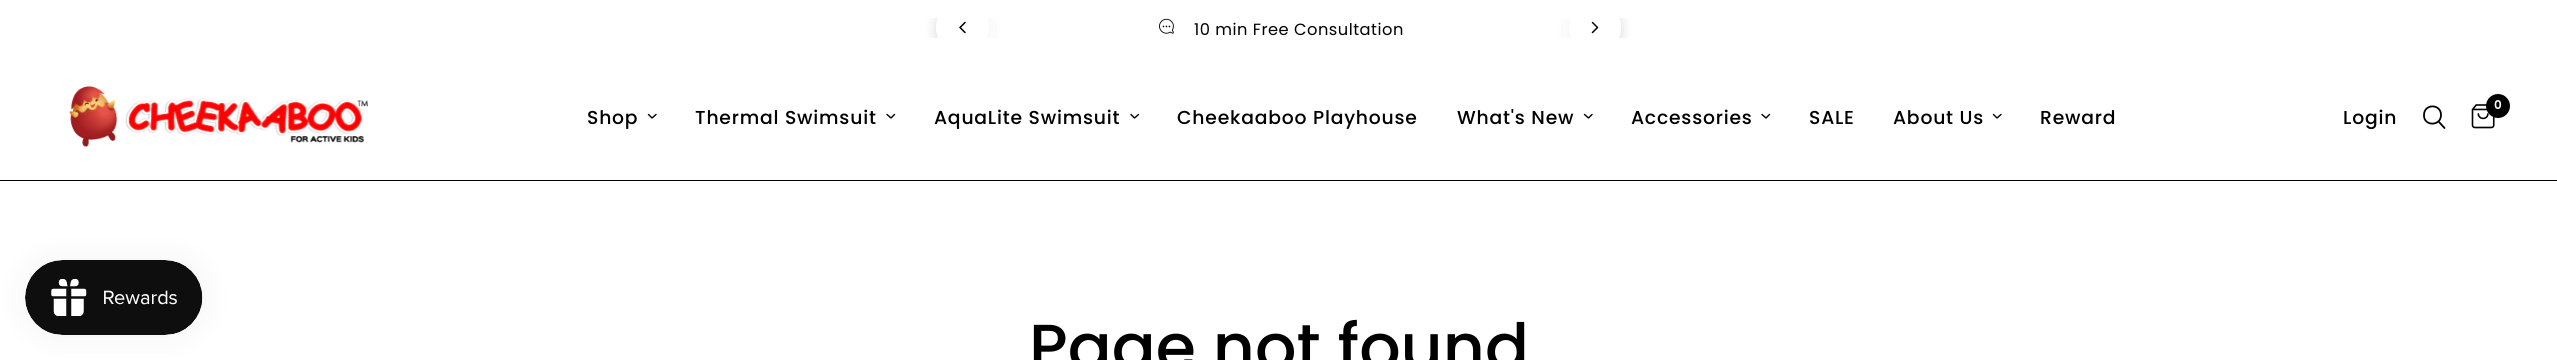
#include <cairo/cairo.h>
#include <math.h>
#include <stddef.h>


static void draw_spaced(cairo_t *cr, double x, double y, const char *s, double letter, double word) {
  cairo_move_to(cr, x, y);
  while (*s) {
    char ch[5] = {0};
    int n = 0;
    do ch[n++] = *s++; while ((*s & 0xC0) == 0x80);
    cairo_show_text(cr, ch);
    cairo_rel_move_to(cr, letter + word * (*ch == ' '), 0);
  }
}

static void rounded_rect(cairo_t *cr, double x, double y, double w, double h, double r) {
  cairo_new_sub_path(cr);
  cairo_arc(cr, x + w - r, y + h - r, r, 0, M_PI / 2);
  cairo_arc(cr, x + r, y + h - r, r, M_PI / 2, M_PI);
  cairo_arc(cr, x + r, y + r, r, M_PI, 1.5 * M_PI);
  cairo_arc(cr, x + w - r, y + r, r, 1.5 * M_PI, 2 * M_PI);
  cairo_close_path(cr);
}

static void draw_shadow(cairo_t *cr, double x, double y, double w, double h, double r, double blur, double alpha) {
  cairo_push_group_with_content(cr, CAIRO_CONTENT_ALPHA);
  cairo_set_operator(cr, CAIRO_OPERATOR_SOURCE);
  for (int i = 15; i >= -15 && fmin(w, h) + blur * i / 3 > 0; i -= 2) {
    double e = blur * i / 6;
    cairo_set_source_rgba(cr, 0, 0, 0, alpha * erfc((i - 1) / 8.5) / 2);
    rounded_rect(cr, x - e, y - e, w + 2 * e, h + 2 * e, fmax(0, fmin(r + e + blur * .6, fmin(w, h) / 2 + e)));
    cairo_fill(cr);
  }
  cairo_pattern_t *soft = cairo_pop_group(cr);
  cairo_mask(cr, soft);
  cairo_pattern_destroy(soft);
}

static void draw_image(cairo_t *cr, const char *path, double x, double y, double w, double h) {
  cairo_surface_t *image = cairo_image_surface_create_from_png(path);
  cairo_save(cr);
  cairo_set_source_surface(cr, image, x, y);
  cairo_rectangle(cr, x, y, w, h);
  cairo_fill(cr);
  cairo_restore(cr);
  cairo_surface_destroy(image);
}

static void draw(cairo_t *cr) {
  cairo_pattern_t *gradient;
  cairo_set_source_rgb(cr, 1, 1, 1);
  cairo_paint(cr);
  cairo_set_source_rgb(cr, 0, 0, 0);
  draw_shadow(cr, 25, 260, 178, 75, 37.5, 15.5, 0.05);
  draw_image(cr, "images/1.png", 25, 260, 178, 75);
  cairo_save(cr);
  cairo_rectangle(cr, 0, 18, 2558, 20);
  cairo_clip(cr);
  draw_shadow(cr, 936, 4, 53, 52, 26, 6, 0.15);
  cairo_restore(cr);
  cairo_save(cr);
  cairo_rectangle(cr, 0, 18, 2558, 20);
  cairo_clip(cr);
  cairo_set_source_rgb(cr, 1, 1, 1);
  cairo_arc(cr, 962.5, 27.5, 26.5, 0, 2 * M_PI);
  cairo_fill(cr);
  cairo_restore(cr);
  cairo_new_path(cr);
  cairo_move_to(cr, 965, 22.5);
  cairo_line_to(cr, 960, 27.5);
  cairo_line_to(cr, 965, 32.5);
  cairo_set_source_rgb(cr, 0, 0, 0);
  cairo_set_line_width(cr, 1.5);
  cairo_set_line_cap(cr, CAIRO_LINE_CAP_ROUND);
  cairo_set_line_join(cr, CAIRO_LINE_JOIN_ROUND);
  cairo_stroke(cr);
  gradient = cairo_pattern_create_linear(1029, 28, 966, 28);
  cairo_pattern_add_color_stop_rgba(gradient, 0, 1, 1, 1, 0);
  cairo_pattern_add_color_stop_rgba(gradient, 1, 1, 1, 1, 1);
  cairo_set_source(cr, gradient);
  cairo_pattern_destroy(gradient);
  cairo_rectangle(cr, 987, 18, 8, 20);
  cairo_fill(cr);
  draw_image(cr, "images/2.png", 1159, 18, 15, 16);
  cairo_save(cr);
  cairo_rectangle(cr, 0, 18, 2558, 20);
  cairo_clip(cr);
  cairo_set_source_rgb(cr, 0, 0, 0);
  draw_shadow(cr, 1569, 4, 52, 52, 26, 6, 0.15);
  cairo_restore(cr);
  cairo_save(cr);
  cairo_rectangle(cr, 0, 18, 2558, 20);
  cairo_clip(cr);
  cairo_set_source_rgb(cr, 1, 1, 1);
  rounded_rect(cr, 1569, 1, 52, 53, 26);
  cairo_fill(cr);
  cairo_restore(cr);
  gradient = cairo_pattern_create_linear(1529, 28, 1591, 28);
  cairo_pattern_add_color_stop_rgba(gradient, 0, 1, 1, 1, 0);
  cairo_pattern_add_color_stop_rgba(gradient, 1, 1, 1, 1, 1);
  cairo_set_source(cr, gradient);
  cairo_pattern_destroy(gradient);
  cairo_rectangle(cr, 1563, 18, 8, 20);
  cairo_fill(cr);
  cairo_new_path(cr);
  cairo_move_to(cr, 1592.5, 22.5);
  cairo_line_to(cr, 1597.5, 27.5);
  cairo_line_to(cr, 1592.5, 32.5);
  cairo_set_source_rgb(cr, 0, 0, 0);
  cairo_stroke(cr);
  cairo_rectangle(cr, 0, 180, 2557, 1);
  cairo_fill(cr);
  draw_image(cr, "images/3.png", 69, 86, 299, 61);
  cairo_new_path(cr);
  cairo_move_to(cr, 656, 114.5);
  cairo_line_to(cr, 652, 118);
  cairo_line_to(cr, 648.5, 114.5);
  cairo_set_line_width(cr, 1.4);
  cairo_stroke(cr);
  cairo_new_path(cr);
  cairo_move_to(cr, 894.5, 114.5);
  cairo_line_to(cr, 891, 118);
  cairo_line_to(cr, 887, 114.5);
  cairo_stroke(cr);
  cairo_new_path(cr);
  cairo_move_to(cr, 1138.5, 114.5);
  cairo_line_to(cr, 1134.5, 118);
  cairo_line_to(cr, 1131, 114.5);
  cairo_stroke(cr);
  cairo_new_path(cr);
  cairo_move_to(cr, 1592, 114.5);
  cairo_line_to(cr, 1588.5, 118);
  cairo_line_to(cr, 1584.5, 114.5);
  cairo_stroke(cr);
  cairo_new_path(cr);
  cairo_move_to(cr, 1769.5, 114.5);
  cairo_line_to(cr, 1766, 118);
  cairo_line_to(cr, 1762, 114.5);
  cairo_stroke(cr);
  cairo_new_path(cr);
  cairo_move_to(cr, 2001, 114.5);
  cairo_line_to(cr, 1997, 118);
  cairo_line_to(cr, 1993.5, 114.5);
  cairo_stroke(cr);
  draw_image(cr, "images/4.png", 2471, 104, 24, 25);
  cairo_arc(cr, 2498, 106, 12, 0, 2 * M_PI);
  cairo_fill(cr);
  cairo_new_path(cr);
  cairo_move_to(cr, 2439, 122);
  cairo_line_to(cr, 2444.5, 128);
  cairo_move_to(cr, 2441, 115);
  cairo_curve_to(cr, 2441, 126.5, 2423.5, 126.5, 2424, 115);
  cairo_curve_to(cr, 2424, 103.5, 2441, 103.5, 2441, 115);
  cairo_close_path(cr);
  cairo_set_line_width(cr, 1.8);
  cairo_stroke(cr);
  cairo_select_font_face(cr, "Poppins", CAIRO_FONT_SLANT_NORMAL, CAIRO_FONT_WEIGHT_NORMAL);
  cairo_set_font_size(cr, 16.25);
  draw_spaced(cr, 1194, 35, "10 min Free Consultation", 0.5, 0);
  cairo_select_font_face(cr, "Poppins Medium", CAIRO_FONT_SLANT_NORMAL, CAIRO_FONT_WEIGHT_NORMAL);
  cairo_set_font_size(cr, 18.75);
  draw_spaced(cr, 587, 124, "Shop", 0.8, 0);
  draw_spaced(cr, 695, 124, "Thermal Swimsuit", 0.8, 0);
  draw_spaced(cr, 934, 124, "AquaLite Swimsuit", 0.8, 0);
  draw_spaced(cr, 1177, 124, "Cheekaaboo Playhouse", 0.8, 0);
  draw_spaced(cr, 1457, 124, "What's New", 0.8, 0);
  draw_spaced(cr, 1631, 124, "Accessories", 0.8, 0);
  draw_spaced(cr, 1809, 124, "SALE", 0.8, 0);
  draw_spaced(cr, 1893, 124, "About Us", 0.8, 0);
  draw_spaced(cr, 2040, 124, "Reward", 0.8, 0);
  cairo_select_font_face(cr, "Poppins SemiBold", CAIRO_FONT_SLANT_NORMAL, CAIRO_FONT_WEIGHT_NORMAL);
  cairo_set_font_size(cr, 12);
  cairo_set_source_rgb(cr, 1, 1, 1);
  draw_spaced(cr, 2494, 109, "0", 0.8, 0);
  cairo_select_font_face(cr, "Poppins Medium", CAIRO_FONT_SLANT_NORMAL, CAIRO_FONT_WEIGHT_NORMAL);
  cairo_set_font_size(cr, 18.75);
  cairo_set_source_rgb(cr, 0, 0, 0);
  draw_spaced(cr, 2343, 124, "Login", 0.8, 0);
  cairo_set_font_size(cr, 65);
  cairo_move_to(cr, 1029, 370);
  cairo_show_text(cr, "Page not found");
}

int main(void) {
  cairo_surface_t *surface = cairo_image_surface_create(CAIRO_FORMAT_RGB24, 2557, 360);
  cairo_t *cr = cairo_create(surface);
  cairo_font_options_t *options = cairo_font_options_create();
  cairo_font_options_set_hint_metrics(options, CAIRO_HINT_METRICS_OFF);
  cairo_font_options_set_hint_style(options, CAIRO_HINT_STYLE_NONE);
  cairo_set_font_options(cr, options);
  cairo_set_miter_limit(cr, 4);
  draw(cr);
  cairo_surface_write_to_png(surface, "out.png");
  cairo_font_options_destroy(options);
  cairo_destroy(cr);
  cairo_surface_destroy(surface);
  return 0;
}
